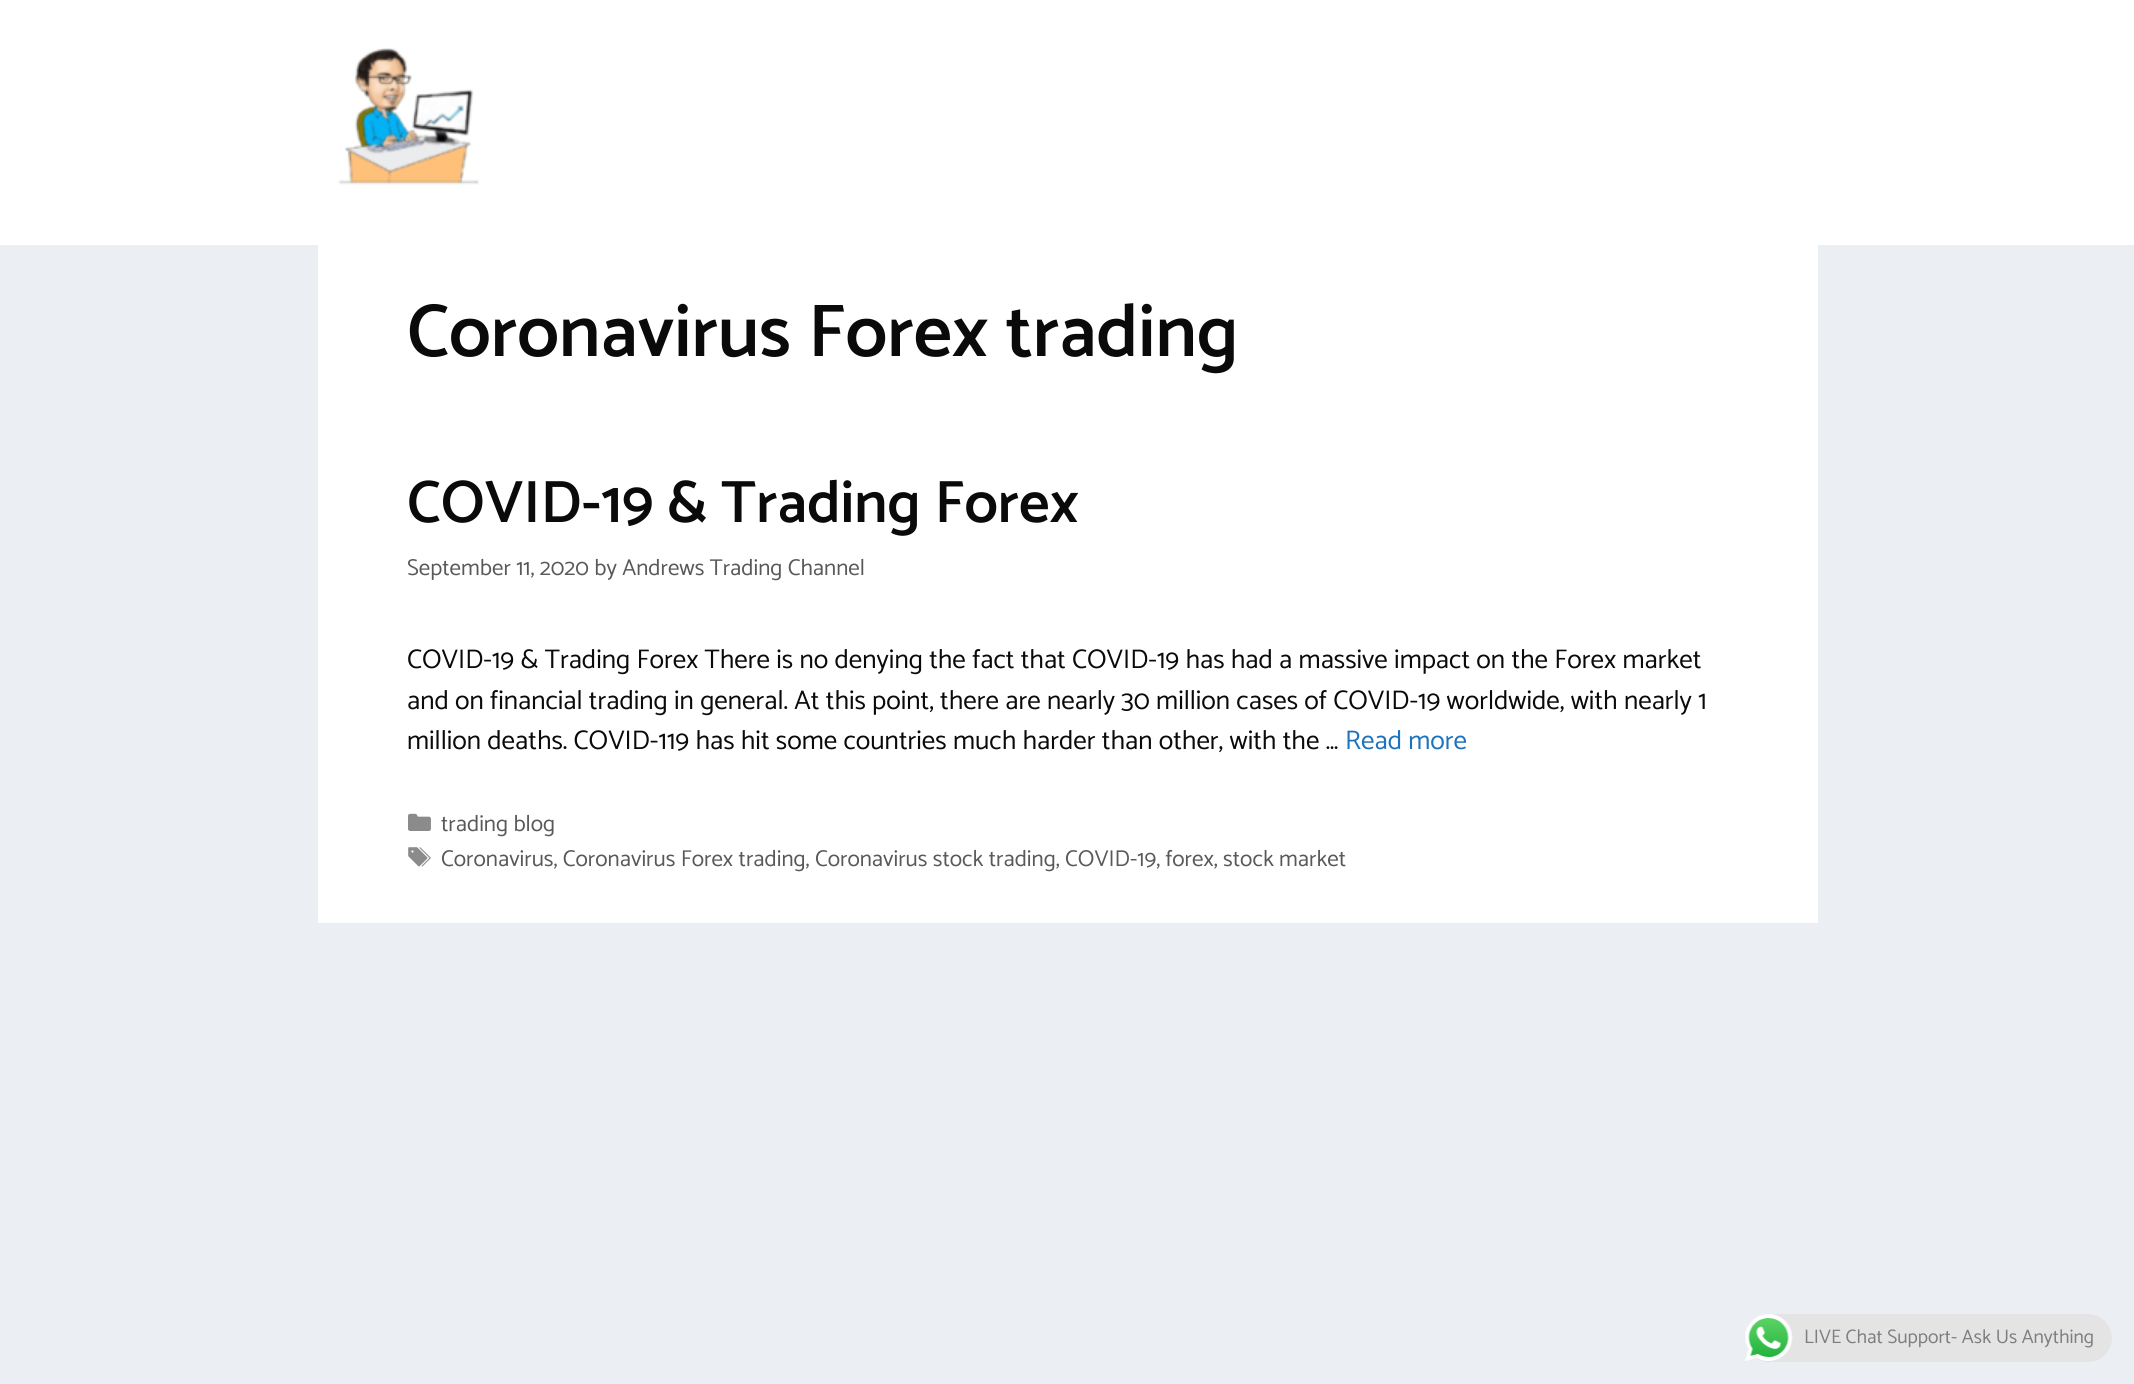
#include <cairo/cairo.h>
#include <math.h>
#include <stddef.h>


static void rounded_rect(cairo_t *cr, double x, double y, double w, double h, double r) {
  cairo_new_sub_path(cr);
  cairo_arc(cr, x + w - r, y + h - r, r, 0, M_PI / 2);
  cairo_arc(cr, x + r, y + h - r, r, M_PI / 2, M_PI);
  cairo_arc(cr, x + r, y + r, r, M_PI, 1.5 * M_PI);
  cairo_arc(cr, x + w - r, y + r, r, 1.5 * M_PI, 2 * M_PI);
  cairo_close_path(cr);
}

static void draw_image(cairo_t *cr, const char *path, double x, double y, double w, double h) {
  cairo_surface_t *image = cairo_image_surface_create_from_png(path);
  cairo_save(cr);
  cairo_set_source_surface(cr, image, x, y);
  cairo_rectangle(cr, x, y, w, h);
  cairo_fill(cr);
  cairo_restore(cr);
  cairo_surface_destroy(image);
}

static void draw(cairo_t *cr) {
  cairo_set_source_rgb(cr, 235 / 255.0, 239 / 255.0, 244 / 255.0);
  cairo_paint(cr);
  cairo_set_source_rgb(cr, 1, 1, 1);
  cairo_rectangle(cr, 0, 0, 2134, 245);
  cairo_fill(cr);
  draw_image(cr, "images/1.png", 338, 48, 141, 137);
  cairo_rectangle(cr, 318, 245, 1500, 678);
  cairo_fill(cr);
  draw_image(cr, "images/2.png", 408, 813, 23, 18);
  draw_image(cr, "images/3.png", 408, 847, 23, 20);
  cairo_set_source_rgb(cr, 228 / 255.0, 228 / 255.0, 228 / 255.0);
  rounded_rect(cr, 1745, 1314, 367, 48, 24);
  cairo_fill(cr);
  draw_image(cr, "images/4.png", 1745, 1314, 48, 48);
  cairo_select_font_face(cr, "Catamaran SemiBold", CAIRO_FONT_SLANT_NORMAL, CAIRO_FONT_WEIGHT_NORMAL);
  cairo_set_font_size(cr, 75);
  cairo_set_source_rgb(cr, 10 / 255.0, 10 / 255.0, 10 / 255.0);
  cairo_move_to(cr, 407, 356);
  cairo_show_text(cr, "Coronavirus Forex trading");
  cairo_set_font_size(cr, 60);
  cairo_move_to(cr, 407, 522);
  cairo_show_text(cr, "COVID-19 & Trading Forex");
  cairo_select_font_face(cr, "Catamaran", CAIRO_FONT_SLANT_NORMAL, CAIRO_FONT_WEIGHT_NORMAL);
  cairo_set_font_size(cr, 22.95);
  cairo_set_source_rgb(cr, 89 / 255.0, 89 / 255.0, 89 / 255.0);
  cairo_move_to(cr, 407, 575);
  cairo_show_text(cr, "September 11, 2020 by Andrews Trading Channel");
  cairo_set_font_size(cr, 27);
  cairo_set_source_rgb(cr, 10 / 255.0, 10 / 255.0, 10 / 255.0);
  cairo_move_to(cr, 407, 668);
  cairo_show_text(cr, "COVID-19 & Trading Forex There is no denying the fact that COVID-19 has had a massive impact on the Forex market");
  cairo_move_to(cr, 407, 709);
  cairo_show_text(cr, "and on financial trading in general. At this point, there are nearly 30 million cases of COVID-19 worldwide, with nearly 1");
  cairo_move_to(cr, 407, 749);
  cairo_show_text(cr, "million deaths. COVID-119 has hit some countries much harder than other, with the …");
  cairo_set_source_rgb(cr, 30 / 255.0, 115 / 255.0, 190 / 255.0);
  cairo_move_to(cr, 1345, 749);
  cairo_show_text(cr, "Read more");
  cairo_set_font_size(cr, 22.95);
  cairo_set_source_rgb(cr, 89 / 255.0, 89 / 255.0, 89 / 255.0);
  cairo_move_to(cr, 441, 831);
  cairo_show_text(cr, "trading blog");
  cairo_move_to(cr, 441, 866);
  cairo_show_text(cr, "Coronavirus, Coronavirus Forex trading, Coronavirus stock trading, COVID-19, forex, stock market");
  cairo_set_font_size(cr, 19.5);
  cairo_set_source_rgb(cr, 127 / 255.0, 125 / 255.0, 125 / 255.0);
  cairo_move_to(cr, 1804, 1343);
  cairo_show_text(cr, "LIVE Chat Support- Ask Us Anything");
}

int main(void) {
  cairo_surface_t *surface = cairo_image_surface_create(CAIRO_FORMAT_RGB24, 2134, 1384);
  cairo_t *cr = cairo_create(surface);
  cairo_font_options_t *options = cairo_font_options_create();
  cairo_font_options_set_hint_metrics(options, CAIRO_HINT_METRICS_OFF);
  cairo_font_options_set_hint_style(options, CAIRO_HINT_STYLE_NONE);
  cairo_set_font_options(cr, options);
  cairo_set_miter_limit(cr, 4);
  draw(cr);
  cairo_surface_write_to_png(surface, "out.png");
  cairo_font_options_destroy(options);
  cairo_destroy(cr);
  cairo_surface_destroy(surface);
  return 0;
}
